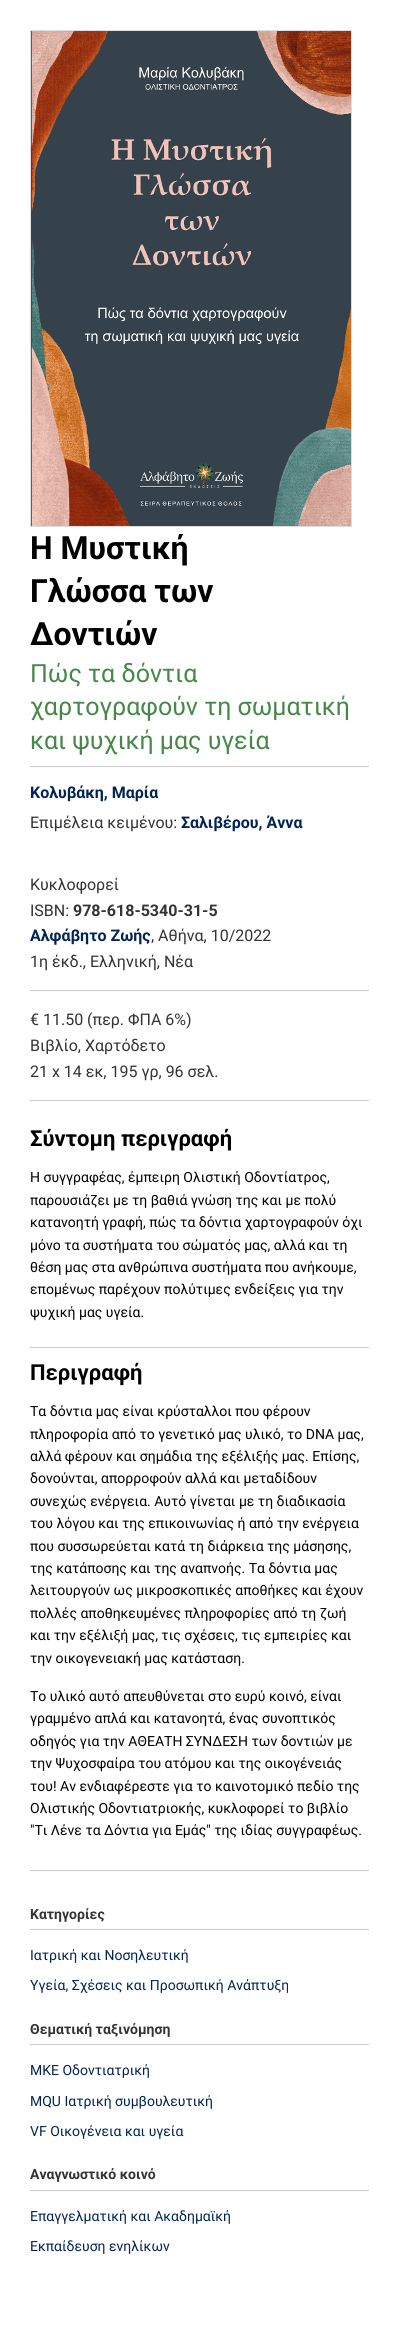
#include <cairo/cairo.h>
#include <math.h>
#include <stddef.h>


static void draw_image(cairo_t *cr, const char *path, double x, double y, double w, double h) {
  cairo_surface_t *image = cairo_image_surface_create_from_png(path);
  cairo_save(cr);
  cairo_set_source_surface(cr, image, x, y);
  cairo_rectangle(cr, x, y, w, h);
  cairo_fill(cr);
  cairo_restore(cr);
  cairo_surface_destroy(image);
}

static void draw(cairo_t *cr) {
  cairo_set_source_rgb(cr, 1, 1, 1);
  cairo_paint(cr);
  cairo_rectangle(cr, 30.5, 30.5, 321, 496);
  cairo_set_source_rgb(cr, 221 / 255.0, 221 / 255.0, 221 / 255.0);
  cairo_set_line_width(cr, 1);
  cairo_stroke(cr);
  draw_image(cr, "images/1.png", 31, 31, 320, 495);
  cairo_set_source_rgb(cr, 204 / 255.0, 204 / 255.0, 204 / 255.0);
  cairo_rectangle(cr, 30, 766, 339, 1);
  cairo_fill(cr);
  cairo_rectangle(cr, 30, 1100, 339, 1);
  cairo_fill(cr);
  cairo_rectangle(cr, 30, 990, 339, 1);
  cairo_fill(cr);
  cairo_rectangle(cr, 30, 1347, 339, 1);
  cairo_fill(cr);
  cairo_rectangle(cr, 30, 1870, 339, 1);
  cairo_fill(cr);
  cairo_rectangle(cr, 30, 1929, 339, 1);
  cairo_fill(cr);
  cairo_rectangle(cr, 30, 2044, 339, 1);
  cairo_fill(cr);
  cairo_rectangle(cr, 30, 2190, 339, 1);
  cairo_fill(cr);
  cairo_select_font_face(cr, "Roboto", CAIRO_FONT_SLANT_NORMAL, CAIRO_FONT_WEIGHT_BOLD);
  cairo_set_font_size(cr, 32);
  cairo_set_source_rgb(cr, 0, 0, 0);
  cairo_move_to(cr, 30, 559);
  cairo_show_text(cr, "Η Μυστική");
  cairo_move_to(cr, 30, 602);
  cairo_show_text(cr, "Γλώσσα των");
  cairo_move_to(cr, 30, 645);
  cairo_show_text(cr, "Δοντιών");
  cairo_select_font_face(cr, "Roboto", CAIRO_FONT_SLANT_NORMAL, CAIRO_FONT_WEIGHT_NORMAL);
  cairo_set_font_size(cr, 25);
  cairo_set_source_rgb(cr, 70 / 255.0, 136 / 255.0, 71 / 255.0);
  cairo_move_to(cr, 30, 682);
  cairo_show_text(cr, "Πώς τα δόντια");
  cairo_move_to(cr, 30, 715);
  cairo_show_text(cr, "χαρτογραφούν τη σωματική");
  cairo_move_to(cr, 30, 749);
  cairo_show_text(cr, "και ψυχική μας υγεία");
  cairo_select_font_face(cr, "Roboto", CAIRO_FONT_SLANT_NORMAL, CAIRO_FONT_WEIGHT_BOLD);
  cairo_set_font_size(cr, 16);
  cairo_set_source_rgb(cr, 2 / 255.0, 36 / 255.0, 84 / 255.0);
  cairo_move_to(cr, 30, 798);
  cairo_show_text(cr, "Κολυβάκη, Μαρία");
  cairo_select_font_face(cr, "Roboto", CAIRO_FONT_SLANT_NORMAL, CAIRO_FONT_WEIGHT_NORMAL);
  cairo_set_source_rgb(cr, 51 / 255.0, 51 / 255.0, 51 / 255.0);
  cairo_move_to(cr, 30, 828);
  cairo_show_text(cr, "Επιμέλεια κειμένου:");
  cairo_select_font_face(cr, "Roboto", CAIRO_FONT_SLANT_NORMAL, CAIRO_FONT_WEIGHT_BOLD);
  cairo_set_source_rgb(cr, 2 / 255.0, 36 / 255.0, 84 / 255.0);
  cairo_move_to(cr, 181, 828);
  cairo_show_text(cr, "Σαλιβέρου, Άννα");
  cairo_select_font_face(cr, "Roboto", CAIRO_FONT_SLANT_NORMAL, CAIRO_FONT_WEIGHT_NORMAL);
  cairo_set_source_rgb(cr, 51 / 255.0, 51 / 255.0, 51 / 255.0);
  cairo_move_to(cr, 30, 890);
  cairo_show_text(cr, "Κυκλοφορεί");
  cairo_move_to(cr, 30, 916);
  cairo_show_text(cr, "ISBN:");
  cairo_select_font_face(cr, "Roboto", CAIRO_FONT_SLANT_NORMAL, CAIRO_FONT_WEIGHT_BOLD);
  cairo_move_to(cr, 73, 916);
  cairo_show_text(cr, "978-618-5340-31-5");
  cairo_set_source_rgb(cr, 2 / 255.0, 36 / 255.0, 84 / 255.0);
  cairo_move_to(cr, 30, 941);
  cairo_show_text(cr, "Αλφάβητο Ζωής");
  cairo_select_font_face(cr, "Roboto", CAIRO_FONT_SLANT_NORMAL, CAIRO_FONT_WEIGHT_NORMAL);
  cairo_set_source_rgb(cr, 51 / 255.0, 51 / 255.0, 51 / 255.0);
  cairo_move_to(cr, 151, 941);
  cairo_show_text(cr, ", Αθήνα, 10/2022");
  cairo_move_to(cr, 30, 967);
  cairo_show_text(cr, "1η έκδ., Ελληνική, Νέα");
  cairo_move_to(cr, 30, 1025);
  cairo_show_text(cr, "€ 11.50 (περ. ΦΠΑ 6%)");
  cairo_move_to(cr, 30, 1051);
  cairo_show_text(cr, "Βιβλίο, Χαρτόδετο");
  cairo_move_to(cr, 30, 1077);
  cairo_show_text(cr, "21 x 14 εκ, 195 γρ, 96 σελ.");
  cairo_select_font_face(cr, "Roboto", CAIRO_FONT_SLANT_NORMAL, CAIRO_FONT_WEIGHT_BOLD);
  cairo_set_font_size(cr, 22);
  cairo_set_source_rgb(cr, 0, 0, 0);
  cairo_move_to(cr, 30, 1146);
  cairo_show_text(cr, "Σύντομη περιγραφή");
  cairo_select_font_face(cr, "Roboto", CAIRO_FONT_SLANT_NORMAL, CAIRO_FONT_WEIGHT_NORMAL);
  cairo_set_font_size(cr, 14);
  cairo_move_to(cr, 30, 1182);
  cairo_show_text(cr, "Η συγγραφέας, έμπειρη Ολιστική Οδοντίατρος,");
  cairo_move_to(cr, 30, 1205);
  cairo_show_text(cr, "παρουσιάζει με τη βαθιά γνώση της και με πολύ");
  cairo_move_to(cr, 30, 1227);
  cairo_show_text(cr, "κατανοητή γραφή, πώς τα δόντια χαρτογραφούν όχι");
  cairo_move_to(cr, 30, 1250);
  cairo_show_text(cr, "μόνο τα συστήματα του σώματός μας, αλλά και τη");
  cairo_move_to(cr, 30, 1272);
  cairo_show_text(cr, "θέση μας στα ανθρώπινα συστήματα που ανήκουμε,");
  cairo_move_to(cr, 30, 1294);
  cairo_show_text(cr, "επομένως παρέχουν πολύτιμες ενδείξεις για την");
  cairo_move_to(cr, 30, 1317);
  cairo_show_text(cr, "ψυχική μας υγεία.");
  cairo_select_font_face(cr, "Roboto", CAIRO_FONT_SLANT_NORMAL, CAIRO_FONT_WEIGHT_BOLD);
  cairo_set_font_size(cr, 22);
  cairo_move_to(cr, 30, 1380);
  cairo_show_text(cr, "Περιγραφή");
  cairo_select_font_face(cr, "Roboto", CAIRO_FONT_SLANT_NORMAL, CAIRO_FONT_WEIGHT_NORMAL);
  cairo_set_font_size(cr, 14);
  cairo_move_to(cr, 30, 1416);
  cairo_show_text(cr, "Τα δόντια μας είναι κρύσταλλοι που φέρουν");
  cairo_move_to(cr, 30, 1439);
  cairo_show_text(cr, "πληροφορία από το γενετικό μας υλικό, το DNA μας,");
  cairo_move_to(cr, 30, 1461);
  cairo_show_text(cr, "αλλά φέρουν και σημάδια της εξέλιξής μας. Επίσης,");
  cairo_move_to(cr, 30, 1483);
  cairo_show_text(cr, "δονούνται, απορροφούν αλλά και μεταδίδουν");
  cairo_move_to(cr, 30, 1506);
  cairo_show_text(cr, "συνεχώς ενέργεια. Αυτό γίνεται με τη διαδικασία");
  cairo_move_to(cr, 30, 1528);
  cairo_show_text(cr, "του λόγου και της επικοινωνίας ή από την ενέργεια");
  cairo_move_to(cr, 30, 1551);
  cairo_show_text(cr, "που συσσωρεύεται κατά τη διάρκεια της μάσησης,");
  cairo_move_to(cr, 30, 1573);
  cairo_show_text(cr, "της κατάποσης και της αναπνοής. Τα δόντια μας");
  cairo_move_to(cr, 30, 1595);
  cairo_show_text(cr, "λειτουργούν ως μικροσκοπικές αποθήκες και έχουν");
  cairo_move_to(cr, 30, 1618);
  cairo_show_text(cr, "πολλές αποθηκευμένες πληροφορίες από τη ζωή");
  cairo_move_to(cr, 30, 1640);
  cairo_show_text(cr, "και την εξέλιξή μας, τις σχέσεις, τις εμπειρίες και");
  cairo_move_to(cr, 30, 1663);
  cairo_show_text(cr, "την οικογενειακή μας κατάσταση.");
  cairo_move_to(cr, 30, 1701);
  cairo_show_text(cr, "Το υλικό αυτό απευθύνεται στο ευρύ κοινό, είναι");
  cairo_move_to(cr, 30, 1723);
  cairo_show_text(cr, "γραμμένο απλά και κατανοητά, ένας συνοπτικός");
  cairo_move_to(cr, 30, 1746);
  cairo_show_text(cr, "οδηγός για την ΑΘΕΑΤΗ ΣΥΝΔΕΣΗ των δοντιών με");
  cairo_move_to(cr, 30, 1768);
  cairo_show_text(cr, "την Ψυχοσφαίρα του ατόμου και της οικογένειάς");
  cairo_move_to(cr, 30, 1791);
  cairo_show_text(cr, "του! Αν ενδιαφέρεστε για το καινοτομικό πεδίο της");
  cairo_move_to(cr, 30, 1813);
  cairo_show_text(cr, "Ολιστικής Οδοντιατριοκής, κυκλοφορεί το βιβλίο");
  cairo_move_to(cr, 30, 1835);
  cairo_show_text(cr, "\"Τι Λένε τα Δόντια για Εμάς\" της ιδίας συγγραφέως.");
  cairo_select_font_face(cr, "Roboto", CAIRO_FONT_SLANT_NORMAL, CAIRO_FONT_WEIGHT_BOLD);
  cairo_set_source_rgb(cr, 51 / 255.0, 51 / 255.0, 51 / 255.0);
  cairo_move_to(cr, 30, 1919);
  cairo_show_text(cr, "Κατηγορίες");
  cairo_select_font_face(cr, "Roboto", CAIRO_FONT_SLANT_NORMAL, CAIRO_FONT_WEIGHT_NORMAL);
  cairo_set_source_rgb(cr, 2 / 255.0, 36 / 255.0, 84 / 255.0);
  cairo_move_to(cr, 30, 1960);
  cairo_show_text(cr, "Ιατρική και Νοσηλευτική");
  cairo_move_to(cr, 30, 1990);
  cairo_show_text(cr, "Υγεία, Σχέσεις και Προσωπική Ανάπτυξη");
  cairo_select_font_face(cr, "Roboto", CAIRO_FONT_SLANT_NORMAL, CAIRO_FONT_WEIGHT_BOLD);
  cairo_set_source_rgb(cr, 51 / 255.0, 51 / 255.0, 51 / 255.0);
  cairo_move_to(cr, 30, 2034);
  cairo_show_text(cr, "Θεματική ταξινόμηση");
  cairo_select_font_face(cr, "Roboto", CAIRO_FONT_SLANT_NORMAL, CAIRO_FONT_WEIGHT_NORMAL);
  cairo_set_source_rgb(cr, 2 / 255.0, 36 / 255.0, 84 / 255.0);
  cairo_move_to(cr, 30, 2075);
  cairo_show_text(cr, "MKE Οδοντιατρική");
  cairo_move_to(cr, 30, 2106);
  cairo_show_text(cr, "MQU Ιατρική συμβουλευτική");
  cairo_move_to(cr, 30, 2136);
  cairo_show_text(cr, "VF Οικογένεια και υγεία");
  cairo_select_font_face(cr, "Roboto", CAIRO_FONT_SLANT_NORMAL, CAIRO_FONT_WEIGHT_BOLD);
  cairo_set_source_rgb(cr, 51 / 255.0, 51 / 255.0, 51 / 255.0);
  cairo_move_to(cr, 30, 2179);
  cairo_show_text(cr, "Αναγνωστικό κοινό");
  cairo_select_font_face(cr, "Roboto", CAIRO_FONT_SLANT_NORMAL, CAIRO_FONT_WEIGHT_NORMAL);
  cairo_set_source_rgb(cr, 2 / 255.0, 36 / 255.0, 84 / 255.0);
  cairo_move_to(cr, 30, 2221);
  cairo_show_text(cr, "Επαγγελματική και Ακαδημαϊκή");
  cairo_move_to(cr, 30, 2251);
  cairo_show_text(cr, "Εκπαίδευση ενηλίκων");
}

int main(void) {
  cairo_surface_t *surface = cairo_image_surface_create(CAIRO_FORMAT_RGB24, 399, 2350);
  cairo_t *cr = cairo_create(surface);
  cairo_font_options_t *options = cairo_font_options_create();
  cairo_font_options_set_hint_metrics(options, CAIRO_HINT_METRICS_OFF);
  cairo_font_options_set_hint_style(options, CAIRO_HINT_STYLE_NONE);
  cairo_set_font_options(cr, options);
  cairo_set_miter_limit(cr, 4);
  draw(cr);
  cairo_surface_write_to_png(surface, "out.png");
  cairo_font_options_destroy(options);
  cairo_destroy(cr);
  cairo_surface_destroy(surface);
  return 0;
}
